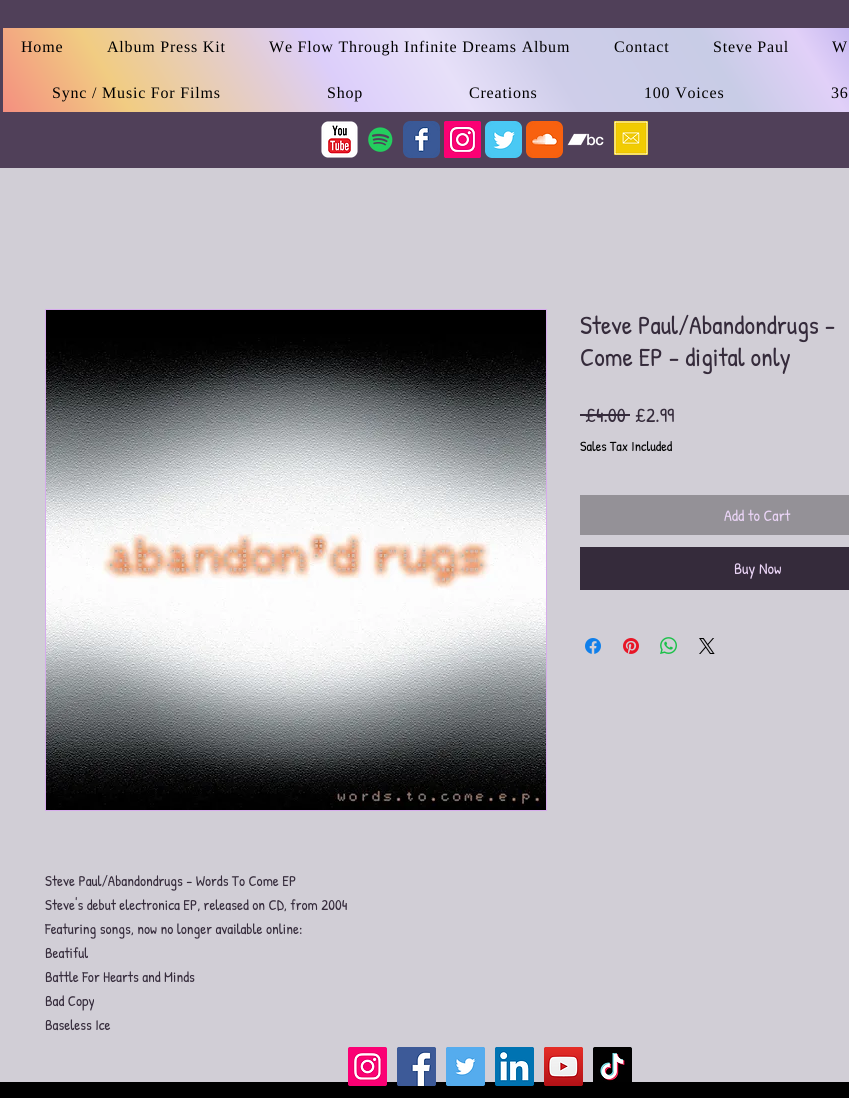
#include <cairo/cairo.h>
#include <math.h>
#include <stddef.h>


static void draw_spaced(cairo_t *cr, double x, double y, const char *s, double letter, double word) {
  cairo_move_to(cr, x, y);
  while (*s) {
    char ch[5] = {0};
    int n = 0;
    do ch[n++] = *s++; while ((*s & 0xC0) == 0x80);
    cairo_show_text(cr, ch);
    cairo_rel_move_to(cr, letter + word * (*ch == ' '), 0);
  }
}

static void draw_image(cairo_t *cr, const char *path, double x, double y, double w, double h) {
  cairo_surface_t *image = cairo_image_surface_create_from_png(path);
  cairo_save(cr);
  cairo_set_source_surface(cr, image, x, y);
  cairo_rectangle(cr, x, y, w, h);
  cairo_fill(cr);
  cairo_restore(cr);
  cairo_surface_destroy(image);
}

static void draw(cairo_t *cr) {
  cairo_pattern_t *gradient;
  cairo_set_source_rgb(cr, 0, 0, 0);
  cairo_paint(cr);
  cairo_set_source_rgb(cr, 80 / 255.0, 64 / 255.0, 89 / 255.0);
  cairo_rectangle(cr, 0, 0, 849, 168);
  cairo_fill(cr);
  gradient = cairo_pattern_create_linear(114, 290, 819, -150);
  cairo_pattern_add_color_stop_rgba(gradient, 0, 244 / 255.0, 143 / 255.0, 128 / 255.0, 1);
  cairo_pattern_add_color_stop_rgba(gradient, 0.13, 241 / 255.0, 204 / 255.0, 130 / 255.0, 1);
  cairo_pattern_add_color_stop_rgba(gradient, 0.36, 220 / 255.0, 206 / 255.0, 250 / 255.0, 1);
  cairo_pattern_add_color_stop_rgba(gradient, 0.48, 231 / 255.0, 224 / 255.0, 249 / 255.0, 1);
  cairo_pattern_add_color_stop_rgba(gradient, 0.59, 206 / 255.0, 205 / 255.0, 233 / 255.0, 1);
  cairo_pattern_add_color_stop_rgba(gradient, 0.76, 200 / 255.0, 204 / 255.0, 230 / 255.0, 1);
  cairo_pattern_add_color_stop_rgba(gradient, 0.86, 225 / 255.0, 208 / 255.0, 248 / 255.0, 1);
  cairo_pattern_add_color_stop_rgba(gradient, 0.99, 164 / 255.0, 154 / 255.0, 230 / 255.0, 1);
  cairo_set_source(cr, gradient);
  cairo_pattern_destroy(gradient);
  cairo_rectangle(cr, 3, 28, 846, 84);
  cairo_fill(cr);
  draw_image(cr, "images/1.png", 321, 121, 37, 37);
  draw_image(cr, "images/2.png", 368, 127, 25, 25);
  draw_image(cr, "images/3.png", 403, 121, 37, 37);
  draw_image(cr, "images/4.png", 444, 121, 37, 37);
  draw_image(cr, "images/5.png", 485, 121, 37, 37);
  draw_image(cr, "images/6.png", 526, 121, 37, 37);
  draw_image(cr, "images/7.png", 567, 133, 37, 13);
  draw_image(cr, "images/8.png", 614, 121, 34, 34);
  cairo_set_source_rgb(cr, 209 / 255.0, 206 / 255.0, 214 / 255.0);
  cairo_rectangle(cr, 0, 168, 849, 914);
  cairo_fill(cr);
  cairo_set_source_rgb(cr, 53 / 255.0, 43 / 255.0, 59 / 255.0);
  cairo_rectangle(cr, 580, 414, 50, 2);
  cairo_fill(cr);
  cairo_set_source_rgb(cr, 148 / 255.0, 145 / 255.0, 151 / 255.0);
  cairo_rectangle(cr, 580, 495, 269, 40);
  cairo_fill(cr);
  cairo_set_source_rgb(cr, 53 / 255.0, 43 / 255.0, 59 / 255.0);
  cairo_rectangle(cr, 580, 547, 269, 43);
  cairo_fill(cr);
  draw_image(cr, "images/9.png", 585, 638, 16, 16);
  draw_image(cr, "images/10.png", 623, 638, 16, 16);
  draw_image(cr, "images/11.png", 660, 637, 17, 17);
  draw_image(cr, "images/12.png", 699, 638, 16, 16);
  cairo_rectangle(cr, 45.5, 309.5, 501, 501);
  cairo_set_source_rgb(cr, 214 / 255.0, 172 / 255.0, 236 / 255.0);
  cairo_set_line_width(cr, 1);
  cairo_stroke(cr);
  draw_image(cr, "images/13.png", 46, 310, 500, 500);
  draw_image(cr, "images/14.png", 348, 1047, 39, 39);
  draw_image(cr, "images/15.png", 397, 1047, 39, 39);
  draw_image(cr, "images/16.png", 446, 1047, 39, 39);
  draw_image(cr, "images/17.png", 495, 1047, 39, 39);
  draw_image(cr, "images/18.png", 544, 1047, 39, 39);
  draw_image(cr, "images/19.png", 593, 1047, 39, 35);
  cairo_select_font_face(cr, "Liberation Serif", CAIRO_FONT_SLANT_NORMAL, CAIRO_FONT_WEIGHT_NORMAL);
  cairo_set_font_size(cr, 16);
  cairo_set_source_rgb(cr, 0, 0, 0);
  draw_spaced(cr, 21, 52, "Home", 0.8, 0);
  draw_spaced(cr, 107, 52, "Album Press Kit", 0.8, 0);
  draw_spaced(cr, 269, 52, "We Flow Through Infinite Dreams Album", 0.8, 0);
  draw_spaced(cr, 614, 52, "Contact", 0.8, 0);
  draw_spaced(cr, 713, 52, "Steve Paul", 0.8, 0);
  draw_spaced(cr, 832, 52, "W", 0.8, 0);
  draw_spaced(cr, 52, 98, "Sync / Music For Films", 0.8, 0);
  draw_spaced(cr, 327, 98, "Shop", 0.8, 0);
  draw_spaced(cr, 469, 98, "Creations", 0.8, 0);
  draw_spaced(cr, 644, 98, "100 Voices", 0.8, 0);
  draw_spaced(cr, 831, 98, "36", 0.8, 0);
  cairo_select_font_face(cr, "Patrick Hand", CAIRO_FONT_SLANT_NORMAL, CAIRO_FONT_WEIGHT_NORMAL);
  cairo_set_font_size(cr, 26);
  cairo_set_source_rgb(cr, 53 / 255.0, 43 / 255.0, 59 / 255.0);
  cairo_move_to(cr, 580, 334);
  cairo_show_text(cr, "Steve Paul/Abandondrugs -");
  cairo_move_to(cr, 580, 366);
  cairo_show_text(cr, "Come EP - digital only");
  cairo_set_font_size(cr, 20);
  cairo_move_to(cr, 585, 422);
  cairo_show_text(cr, "£4.00");
  cairo_move_to(cr, 635, 422);
  cairo_show_text(cr, "£2.99");
  cairo_set_font_size(cr, 14);
  cairo_set_source_rgb(cr, 0, 0, 0);
  cairo_move_to(cr, 580, 451);
  cairo_show_text(cr, "Sales Tax Included");
  cairo_set_font_size(cr, 16);
  cairo_set_source_rgb(cr, 234 / 255.0, 212 / 255.0, 246 / 255.0);
  cairo_move_to(cr, 724, 521);
  cairo_show_text(cr, "Add to Cart");
  cairo_move_to(cr, 734, 574);
  cairo_show_text(cr, "Buy Now");
  cairo_set_font_size(cr, 15);
  cairo_set_source_rgb(cr, 53 / 255.0, 43 / 255.0, 59 / 255.0);
  cairo_move_to(cr, 45, 886);
  cairo_show_text(cr, "Steve Paul/Abandondrugs - Words To Come EP");
  cairo_move_to(cr, 45, 910);
  cairo_show_text(cr, "Steve's debut electronica EP, released on CD, from 2004");
  cairo_move_to(cr, 45, 934);
  cairo_show_text(cr, "Featuring songs, now no longer available online:");
  cairo_move_to(cr, 45, 958);
  cairo_show_text(cr, "Beatiful");
  cairo_move_to(cr, 45, 982);
  cairo_show_text(cr, "Battle For Hearts and Minds");
  cairo_move_to(cr, 45, 1006);
  cairo_show_text(cr, "Bad Copy");
  cairo_move_to(cr, 45, 1030);
  cairo_show_text(cr, "Baseless Ice");
}

int main(void) {
  cairo_surface_t *surface = cairo_image_surface_create(CAIRO_FORMAT_RGB24, 849, 1098);
  cairo_t *cr = cairo_create(surface);
  cairo_font_options_t *options = cairo_font_options_create();
  cairo_font_options_set_hint_metrics(options, CAIRO_HINT_METRICS_OFF);
  cairo_font_options_set_hint_style(options, CAIRO_HINT_STYLE_NONE);
  cairo_set_font_options(cr, options);
  cairo_set_miter_limit(cr, 4);
  draw(cr);
  cairo_surface_write_to_png(surface, "out.png");
  cairo_font_options_destroy(options);
  cairo_destroy(cr);
  cairo_surface_destroy(surface);
  return 0;
}
